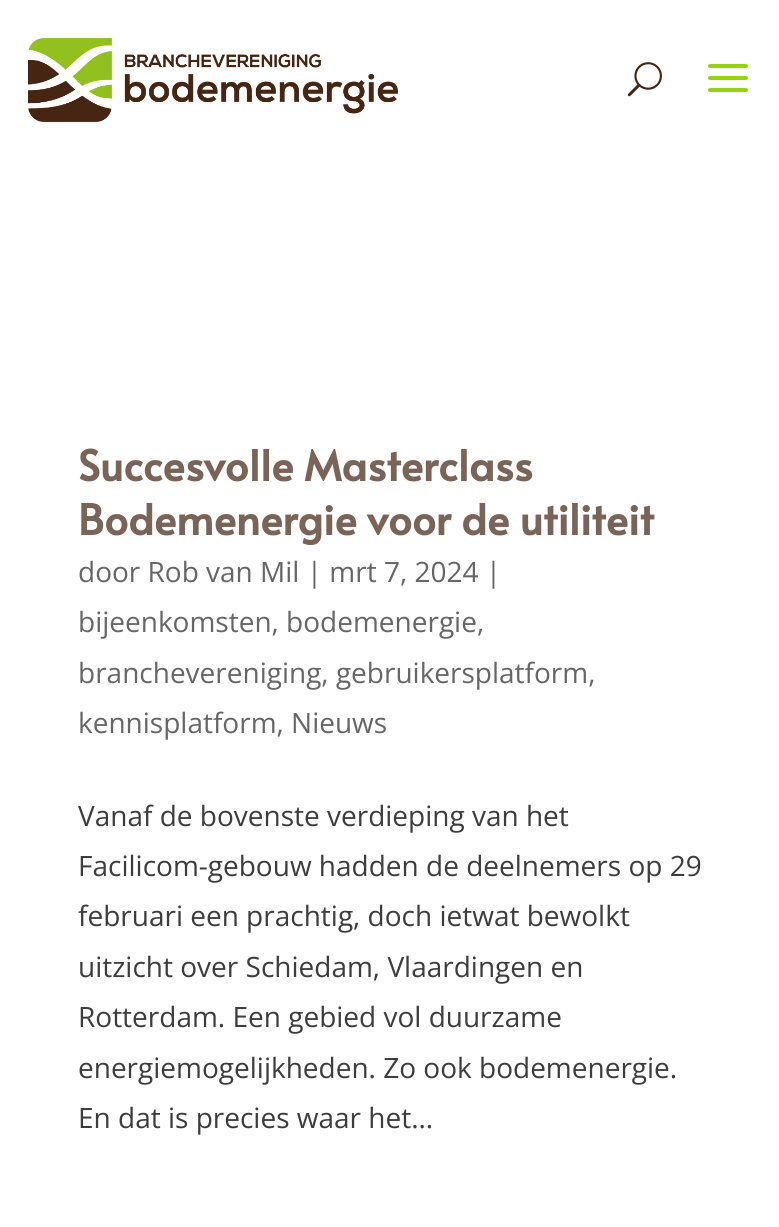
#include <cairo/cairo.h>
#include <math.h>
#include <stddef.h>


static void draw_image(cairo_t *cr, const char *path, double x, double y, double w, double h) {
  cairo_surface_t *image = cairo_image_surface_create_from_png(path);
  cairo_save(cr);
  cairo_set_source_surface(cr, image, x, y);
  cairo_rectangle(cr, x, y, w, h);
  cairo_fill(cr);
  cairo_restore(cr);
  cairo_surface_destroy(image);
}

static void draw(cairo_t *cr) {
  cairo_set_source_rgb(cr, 1, 1, 1);
  cairo_paint(cr);
  draw_image(cr, "images/1.png", 28, 38, 370, 84);
  draw_image(cr, "images/2.png", 627, 62, 35, 35);
  draw_image(cr, "images/3.png", 708, 64, 40, 28);
  cairo_select_font_face(cr, "Alata", CAIRO_FONT_SLANT_NORMAL, CAIRO_FONT_WEIGHT_BOLD);
  cairo_set_font_size(cr, 42);
  cairo_set_source_rgb(cr, 122 / 255.0, 100 / 255.0, 88 / 255.0);
  cairo_move_to(cr, 78, 481);
  cairo_show_text(cr, "Succesvolle Masterclass");
  cairo_move_to(cr, 78, 535);
  cairo_show_text(cr, "Bodemenergie voor de utiliteit");
  cairo_select_font_face(cr, "Open Sans", CAIRO_FONT_SLANT_NORMAL, CAIRO_FONT_WEIGHT_NORMAL);
  cairo_set_font_size(cr, 28);
  cairo_set_source_rgb(cr, 102 / 255.0, 102 / 255.0, 102 / 255.0);
  cairo_move_to(cr, 78, 582);
  cairo_show_text(cr, "door Rob van Mil | mrt 7, 2024 |");
  cairo_move_to(cr, 78, 632);
  cairo_show_text(cr, "bijeenkomsten, bodemenergie,");
  cairo_move_to(cr, 78, 683);
  cairo_show_text(cr, "branchevereniging, gebruikersplatform,");
  cairo_move_to(cr, 78, 733);
  cairo_show_text(cr, "kennisplatform, Nieuws");
  cairo_set_source_rgb(cr, 61 / 255.0, 61 / 255.0, 61 / 255.0);
  cairo_move_to(cr, 78, 826);
  cairo_show_text(cr, "Vanaf de bovenste verdieping van het");
  cairo_move_to(cr, 78, 876);
  cairo_show_text(cr, "Facilicom-gebouw hadden de deelnemers op 29");
  cairo_move_to(cr, 78, 926);
  cairo_show_text(cr, "februari een prachtig, doch ietwat bewolkt");
  cairo_move_to(cr, 78, 977);
  cairo_show_text(cr, "uitzicht over Schiedam, Vlaardingen en");
  cairo_move_to(cr, 78, 1027);
  cairo_show_text(cr, "Rotterdam. Een gebied vol duurzame");
  cairo_move_to(cr, 78, 1078);
  cairo_show_text(cr, "energiemogelijkheden. Zo ook bodemenergie.");
  cairo_move_to(cr, 78, 1128);
  cairo_show_text(cr, "En dat is precies waar het...");
}

int main(void) {
  cairo_surface_t *surface = cairo_image_surface_create(CAIRO_FORMAT_RGB24, 779, 1227);
  cairo_t *cr = cairo_create(surface);
  cairo_font_options_t *options = cairo_font_options_create();
  cairo_font_options_set_hint_metrics(options, CAIRO_HINT_METRICS_OFF);
  cairo_font_options_set_hint_style(options, CAIRO_HINT_STYLE_NONE);
  cairo_set_font_options(cr, options);
  cairo_set_miter_limit(cr, 4);
  draw(cr);
  cairo_surface_write_to_png(surface, "out.png");
  cairo_font_options_destroy(options);
  cairo_destroy(cr);
  cairo_surface_destroy(surface);
  return 0;
}
